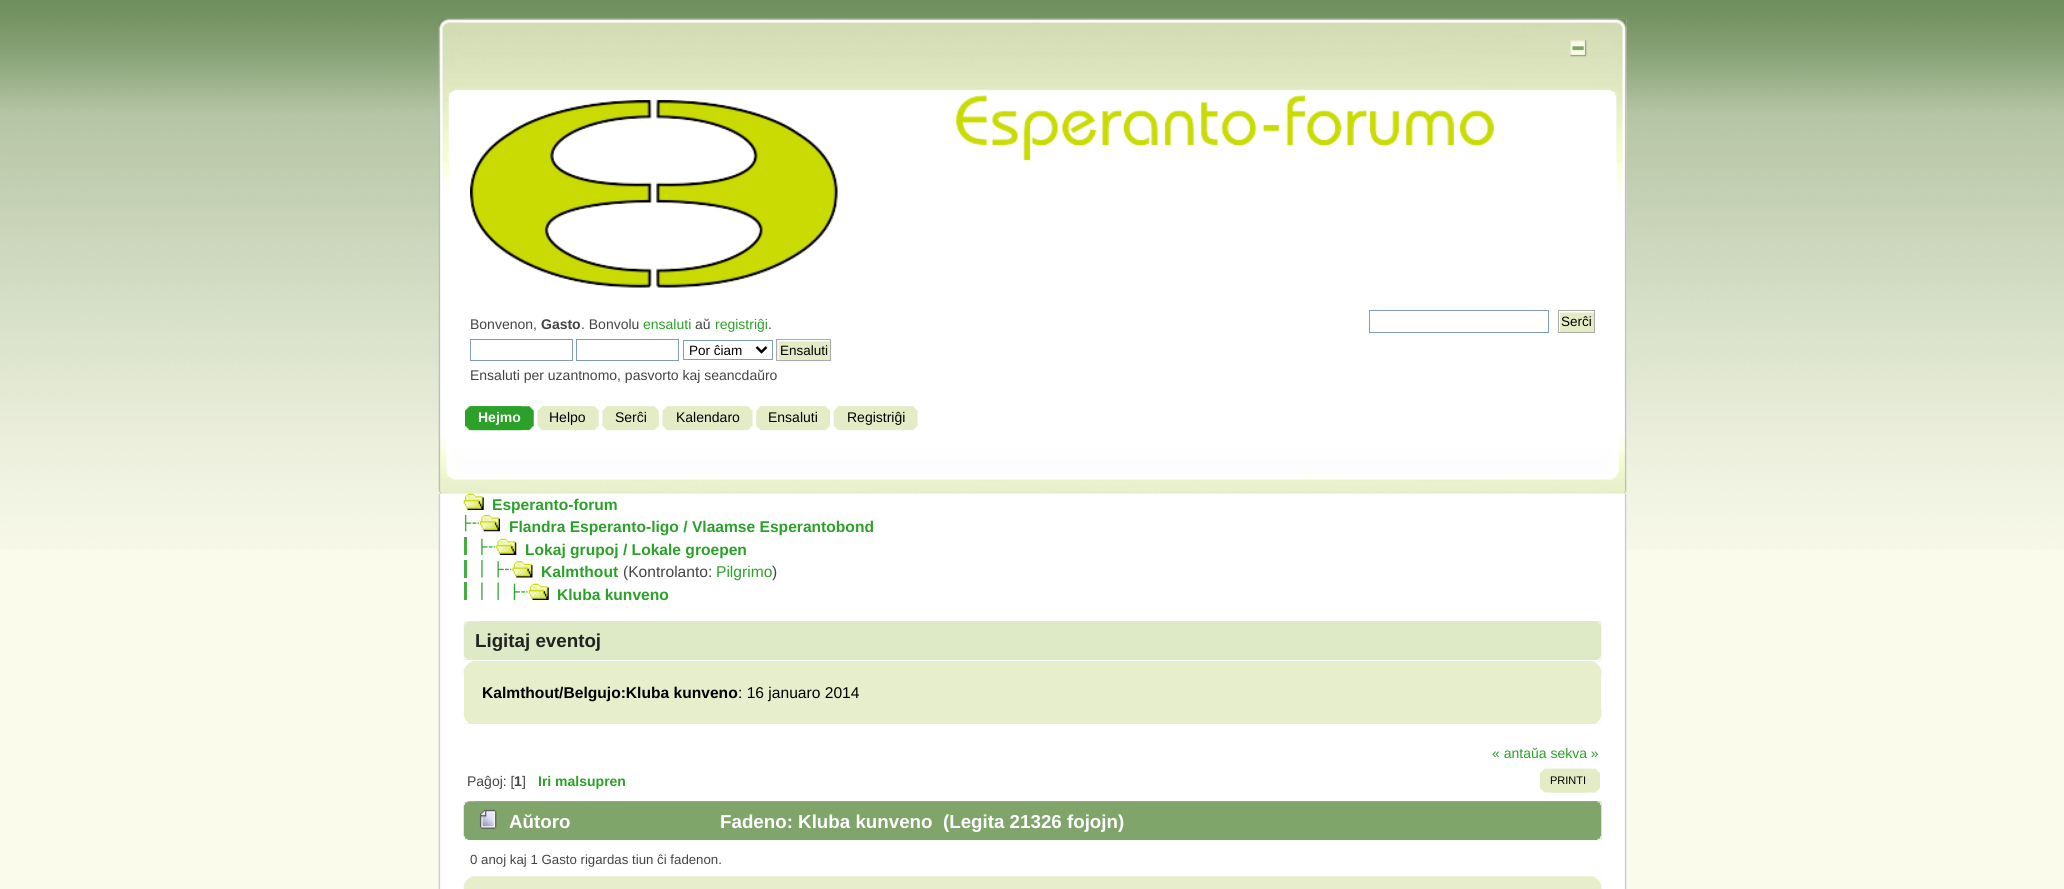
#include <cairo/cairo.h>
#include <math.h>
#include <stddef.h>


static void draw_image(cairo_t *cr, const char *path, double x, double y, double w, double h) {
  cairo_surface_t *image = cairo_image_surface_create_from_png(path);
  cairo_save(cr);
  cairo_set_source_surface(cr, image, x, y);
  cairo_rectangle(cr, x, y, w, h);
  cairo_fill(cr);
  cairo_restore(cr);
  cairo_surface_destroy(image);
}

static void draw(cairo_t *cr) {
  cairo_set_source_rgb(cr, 251 / 255.0, 251 / 255.0, 236 / 255.0);
  cairo_paint(cr);
  draw_image(cr, "images/1.png", 0, 0, 2064, 550);
  draw_image(cr, "images/2.png", 438, 18, 1189, 476);
  draw_image(cr, "images/3.png", 464, 18, 1163, 476);
  draw_image(cr, "images/4.png", 1570, 40, 17, 17);
  draw_image(cr, "images/5.png", 470, 100, 368, 188);
  draw_image(cr, "images/6.png", 956, 94, 538, 67);
  cairo_rectangle(cr, 470.5, 339.5, 102, 21);
  cairo_set_source_rgb(cr, 127 / 255.0, 157 / 255.0, 185 / 255.0);
  cairo_set_line_width(cr, 1);
  cairo_stroke(cr);
  cairo_rectangle(cr, 576.5, 339.5, 102, 21);
  cairo_stroke(cr);
  cairo_rectangle(cr, 683.5, 340.5, 89, 19);
  cairo_stroke(cr);
  cairo_new_path(cr);
  cairo_move_to(cr, 756.5, 347);
  cairo_line_to(cr, 761.5, 352);
  cairo_line_to(cr, 766.5, 347);
  cairo_set_source_rgb(cr, 0, 0, 0);
  cairo_set_line_width(cr, 2.5);
  cairo_stroke(cr);
  cairo_set_source_rgb(cr, 205 / 255.0, 231 / 255.0, 1);
  cairo_rectangle(cr, 777, 340, 1, 20);
  cairo_fill(cr);
  draw_image(cr, "images/7.png", 777, 340, 55, 22);
  cairo_rectangle(cr, 776.5, 339.5, 54, 21);
  cairo_set_source_rgb(cr, 170 / 255.0, 170 / 255.0, 170 / 255.0);
  cairo_set_line_width(cr, 1);
  cairo_stroke(cr);
  cairo_rectangle(cr, 1369.5, 310.5, 179, 22);
  cairo_set_source_rgb(cr, 127 / 255.0, 157 / 255.0, 185 / 255.0);
  cairo_stroke(cr);
  draw_image(cr, "images/8.png", 1559, 311, 35, 21);
  cairo_rectangle(cr, 1558.5, 310.5, 36, 22);
  cairo_set_source_rgb(cr, 170 / 255.0, 170 / 255.0, 170 / 255.0);
  cairo_stroke(cr);
  draw_image(cr, "images/9.png", 471, 406, 63, 25);
  draw_image(cr, "images/10.png", 465, 406, 57, 25);
  draw_image(cr, "images/11.png", 543, 406, 56, 25);
  draw_image(cr, "images/12.png", 537, 406, 49, 25);
  draw_image(cr, "images/13.png", 608, 406, 51, 25);
  draw_image(cr, "images/14.png", 602, 406, 44, 25);
  draw_image(cr, "images/15.png", 668, 406, 85, 25);
  draw_image(cr, "images/16.png", 662, 406, 78, 25);
  draw_image(cr, "images/17.png", 762, 406, 68, 25);
  draw_image(cr, "images/18.png", 756, 406, 62, 25);
  draw_image(cr, "images/19.png", 840, 406, 78, 25);
  draw_image(cr, "images/20.png", 833, 406, 72, 25);
  draw_image(cr, "images/21.png", 438, 493, 1189, 396);
  draw_image(cr, "images/22.png", 464, 493, 1163, 396);
  draw_image(cr, "images/23.png", 463, 493, 21, 17);
  draw_image(cr, "images/24.png", 464, 515, 15, 17);
  draw_image(cr, "images/25.png", 480, 515, 20, 17);
  draw_image(cr, "images/26.png", 481, 538, 15, 17);
  draw_image(cr, "images/27.png", 496, 538, 21, 17);
  cairo_set_source_rgb(cr, 70 / 255.0, 172 / 255.0, 68 / 255.0);
  cairo_rectangle(cr, 464, 537, 3, 18);
  cairo_fill(cr);
  draw_image(cr, "images/28.png", 481, 560, 2, 18);
  draw_image(cr, "images/29.png", 497, 561, 15, 17);
  draw_image(cr, "images/30.png", 512, 561, 21, 17);
  cairo_rectangle(cr, 464, 560, 3, 18);
  cairo_fill(cr);
  draw_image(cr, "images/31.png", 481, 582, 2, 18);
  draw_image(cr, "images/32.png", 497, 582, 2, 18);
  draw_image(cr, "images/33.png", 513, 583, 15, 17);
  draw_image(cr, "images/34.png", 528, 583, 21, 17);
  cairo_rectangle(cr, 464, 582, 3, 18);
  cairo_fill(cr);
  draw_image(cr, "images/35.png", 463, 621, 1139, 39);
  draw_image(cr, "images/36.png", 475, 621, 1126, 39);
  cairo_set_source_rgb(cr, 231 / 255.0, 238 / 255.0, 204 / 255.0);
  cairo_rectangle(cr, 464, 661, 1137, 63);
  cairo_fill(cr);
  draw_image(cr, "images/37.png", 463, 661, 1139, 14);
  draw_image(cr, "images/38.png", 1593, 661, 9, 14);
  draw_image(cr, "images/39.png", 463, 710, 1139, 14);
  draw_image(cr, "images/40.png", 1596, 710, 6, 14);
  draw_image(cr, "images/41.png", 1540, 768, 50, 25);
  draw_image(cr, "images/42.png", 1550, 768, 50, 25);
  draw_image(cr, "images/43.png", 463, 801, 1139, 39);
  draw_image(cr, "images/44.png", 475, 801, 1127, 39);
  draw_image(cr, "images/45.png", 479, 809, 18, 20);
  draw_image(cr, "images/46.png", 463, 876, 1139, 13);
  draw_image(cr, "images/47.png", 1593, 876, 9, 13);
  cairo_select_font_face(cr, "Liberation Sans", CAIRO_FONT_SLANT_NORMAL, CAIRO_FONT_WEIGHT_NORMAL);
  cairo_set_font_size(cr, 14);
  cairo_set_source_rgb(cr, 68 / 255.0, 68 / 255.0, 68 / 255.0);
  cairo_move_to(cr, 470, 329);
  cairo_show_text(cr, "Bonvenon,");
  cairo_select_font_face(cr, "Liberation Sans", CAIRO_FONT_SLANT_NORMAL, CAIRO_FONT_WEIGHT_BOLD);
  cairo_move_to(cr, 541, 329);
  cairo_show_text(cr, "Gasto");
  cairo_select_font_face(cr, "Liberation Sans", CAIRO_FONT_SLANT_NORMAL, CAIRO_FONT_WEIGHT_NORMAL);
  cairo_move_to(cr, 581, 329);
  cairo_show_text(cr, ". Bonvolu");
  cairo_set_source_rgb(cr, 43 / 255.0, 161 / 255.0, 41 / 255.0);
  cairo_move_to(cr, 643, 329);
  cairo_show_text(cr, "ensaluti");
  cairo_set_source_rgb(cr, 68 / 255.0, 68 / 255.0, 68 / 255.0);
  cairo_move_to(cr, 695, 329);
  cairo_show_text(cr, "aŭ");
  cairo_set_source_rgb(cr, 43 / 255.0, 161 / 255.0, 41 / 255.0);
  cairo_move_to(cr, 715, 329);
  cairo_show_text(cr, "registriĝi");
  cairo_set_source_rgb(cr, 68 / 255.0, 68 / 255.0, 68 / 255.0);
  cairo_move_to(cr, 768, 329);
  cairo_show_text(cr, ".");
  cairo_set_font_size(cr, 13.5);
  cairo_set_source_rgb(cr, 0, 0, 0);
  cairo_move_to(cr, 689, 355);
  cairo_show_text(cr, "Por ĉiam");
  cairo_move_to(cr, 780, 355);
  cairo_show_text(cr, "Ensaluti");
  cairo_set_font_size(cr, 14);
  cairo_set_source_rgb(cr, 68 / 255.0, 68 / 255.0, 68 / 255.0);
  cairo_move_to(cr, 470, 380);
  cairo_show_text(cr, "Ensaluti per uzantnomo, pasvorto kaj seancdaŭro");
  cairo_set_font_size(cr, 13.5);
  cairo_set_source_rgb(cr, 0, 0, 0);
  cairo_move_to(cr, 1561, 326);
  cairo_show_text(cr, "Serĉi");
  cairo_select_font_face(cr, "Liberation Sans", CAIRO_FONT_SLANT_NORMAL, CAIRO_FONT_WEIGHT_BOLD);
  cairo_set_font_size(cr, 14);
  cairo_set_source_rgb(cr, 1, 1, 1);
  cairo_move_to(cr, 478, 422);
  cairo_show_text(cr, "Hejmo");
  cairo_select_font_face(cr, "Liberation Sans", CAIRO_FONT_SLANT_NORMAL, CAIRO_FONT_WEIGHT_NORMAL);
  cairo_set_source_rgb(cr, 0, 0, 0);
  cairo_move_to(cr, 549, 422);
  cairo_show_text(cr, "Helpo");
  cairo_move_to(cr, 615, 422);
  cairo_show_text(cr, "Serĉi");
  cairo_move_to(cr, 676, 422);
  cairo_show_text(cr, "Kalendaro");
  cairo_move_to(cr, 768, 422);
  cairo_show_text(cr, "Ensaluti");
  cairo_move_to(cr, 847, 422);
  cairo_show_text(cr, "Registriĝi");
  cairo_select_font_face(cr, "Liberation Sans", CAIRO_FONT_SLANT_NORMAL, CAIRO_FONT_WEIGHT_BOLD);
  cairo_set_font_size(cr, 15.6);
  cairo_set_source_rgb(cr, 43 / 255.0, 161 / 255.0, 41 / 255.0);
  cairo_move_to(cr, 492, 510);
  cairo_show_text(cr, "Esperanto-forum");
  cairo_move_to(cr, 509, 532);
  cairo_show_text(cr, "Flandra Esperanto-ligo / Vlaamse Esperantobond");
  cairo_move_to(cr, 525, 555);
  cairo_show_text(cr, "Lokaj grupoj / Lokale groepen");
  cairo_move_to(cr, 541, 577);
  cairo_show_text(cr, "Kalmthout");
  cairo_select_font_face(cr, "Liberation Sans", CAIRO_FONT_SLANT_NORMAL, CAIRO_FONT_WEIGHT_NORMAL);
  cairo_set_source_rgb(cr, 68 / 255.0, 68 / 255.0, 68 / 255.0);
  cairo_move_to(cr, 623, 577);
  cairo_show_text(cr, "(Kontrolanto:");
  cairo_set_source_rgb(cr, 43 / 255.0, 161 / 255.0, 41 / 255.0);
  cairo_move_to(cr, 716, 577);
  cairo_show_text(cr, "Pilgrimo");
  cairo_set_source_rgb(cr, 68 / 255.0, 68 / 255.0, 68 / 255.0);
  cairo_move_to(cr, 772, 577);
  cairo_show_text(cr, ")");
  cairo_select_font_face(cr, "Liberation Sans", CAIRO_FONT_SLANT_NORMAL, CAIRO_FONT_WEIGHT_BOLD);
  cairo_set_source_rgb(cr, 43 / 255.0, 161 / 255.0, 41 / 255.0);
  cairo_move_to(cr, 557, 600);
  cairo_show_text(cr, "Kluba kunveno");
  cairo_set_font_size(cr, 18.75);
  cairo_set_source_rgb(cr, 34 / 255.0, 34 / 255.0, 34 / 255.0);
  cairo_move_to(cr, 475, 647);
  cairo_show_text(cr, "Ligitaj eventoj");
  cairo_set_font_size(cr, 15.6);
  cairo_set_source_rgb(cr, 0, 0, 0);
  cairo_move_to(cr, 482, 698);
  cairo_show_text(cr, "Kalmthout/Belgujo:Kluba kunveno");
  cairo_select_font_face(cr, "Liberation Sans", CAIRO_FONT_SLANT_NORMAL, CAIRO_FONT_WEIGHT_NORMAL);
  cairo_move_to(cr, 738, 698);
  cairo_show_text(cr, ": 16 januaro 2014");
  cairo_set_font_size(cr, 14);
  cairo_set_source_rgb(cr, 43 / 255.0, 161 / 255.0, 41 / 255.0);
  cairo_move_to(cr, 1492, 758);
  cairo_show_text(cr, "« antaŭa sekva »");
  cairo_set_source_rgb(cr, 68 / 255.0, 68 / 255.0, 68 / 255.0);
  cairo_move_to(cr, 467, 786);
  cairo_show_text(cr, "Paĝoj: [");
  cairo_select_font_face(cr, "Liberation Sans", CAIRO_FONT_SLANT_NORMAL, CAIRO_FONT_WEIGHT_BOLD);
  cairo_move_to(cr, 514, 786);
  cairo_show_text(cr, "1");
  cairo_select_font_face(cr, "Liberation Sans", CAIRO_FONT_SLANT_NORMAL, CAIRO_FONT_WEIGHT_NORMAL);
  cairo_move_to(cr, 522, 786);
  cairo_show_text(cr, "]");
  cairo_select_font_face(cr, "Liberation Sans", CAIRO_FONT_SLANT_NORMAL, CAIRO_FONT_WEIGHT_BOLD);
  cairo_set_source_rgb(cr, 43 / 255.0, 161 / 255.0, 41 / 255.0);
  cairo_move_to(cr, 538, 786);
  cairo_show_text(cr, "Iri malsupren");
  cairo_select_font_face(cr, "Liberation Sans", CAIRO_FONT_SLANT_NORMAL, CAIRO_FONT_WEIGHT_NORMAL);
  cairo_set_font_size(cr, 11);
  cairo_set_source_rgb(cr, 0, 0, 0);
  cairo_move_to(cr, 1550, 784);
  cairo_show_text(cr, "PRINTI");
  cairo_select_font_face(cr, "Liberation Sans", CAIRO_FONT_SLANT_NORMAL, CAIRO_FONT_WEIGHT_BOLD);
  cairo_set_font_size(cr, 18.75);
  cairo_set_source_rgb(cr, 1, 1, 1);
  cairo_move_to(cr, 509, 828);
  cairo_show_text(cr, "Aŭtoro");
  cairo_move_to(cr, 720, 828);
  cairo_show_text(cr, "Fadeno: Kluba kunveno  (Legita 21326 fojojn)");
  cairo_select_font_face(cr, "Liberation Sans", CAIRO_FONT_SLANT_NORMAL, CAIRO_FONT_WEIGHT_NORMAL);
  cairo_set_font_size(cr, 13.25);
  cairo_set_source_rgb(cr, 68 / 255.0, 68 / 255.0, 68 / 255.0);
  cairo_move_to(cr, 470, 864);
  cairo_show_text(cr, "0 anoj kaj 1 Gasto rigardas tiun ĉi fadenon.");
}

int main(void) {
  cairo_surface_t *surface = cairo_image_surface_create(CAIRO_FORMAT_RGB24, 2064, 889);
  cairo_t *cr = cairo_create(surface);
  cairo_font_options_t *options = cairo_font_options_create();
  cairo_font_options_set_hint_metrics(options, CAIRO_HINT_METRICS_OFF);
  cairo_font_options_set_hint_style(options, CAIRO_HINT_STYLE_NONE);
  cairo_set_font_options(cr, options);
  cairo_set_miter_limit(cr, 4);
  draw(cr);
  cairo_surface_write_to_png(surface, "out.png");
  cairo_font_options_destroy(options);
  cairo_destroy(cr);
  cairo_surface_destroy(surface);
  return 0;
}
